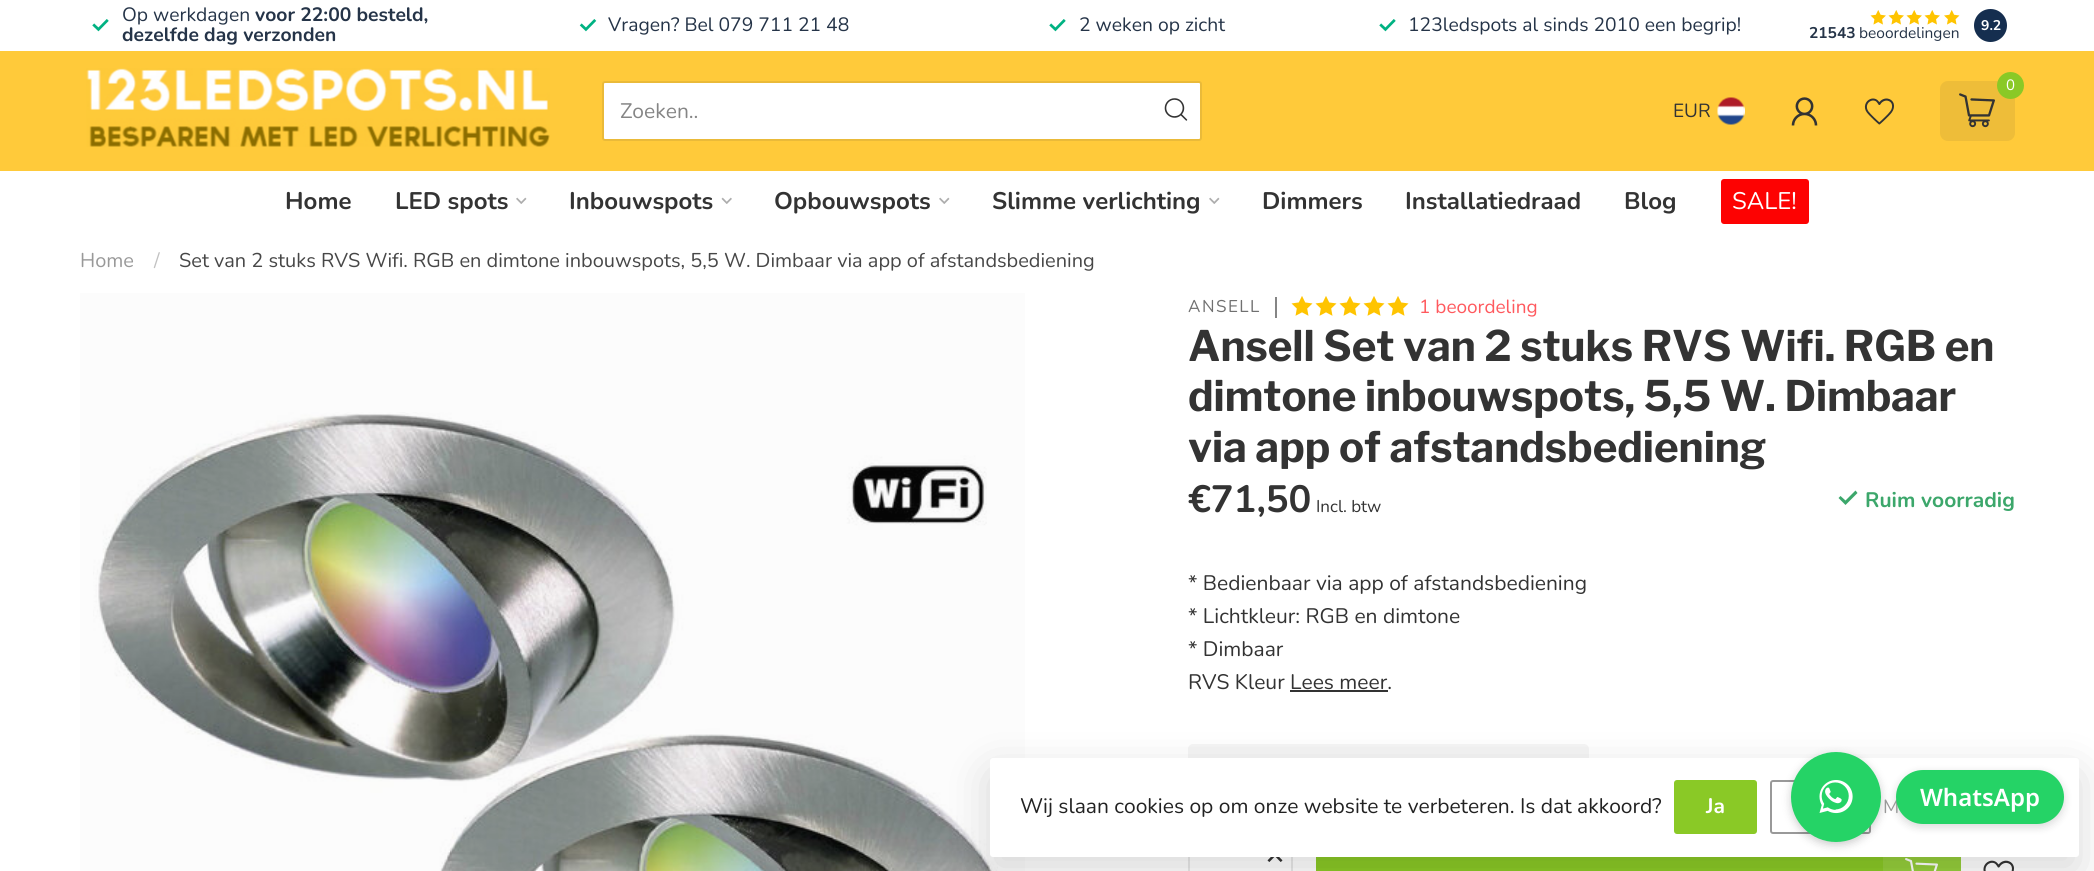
#include <cairo/cairo.h>
#include <math.h>
#include <stddef.h>


static void draw_spaced(cairo_t *cr, double x, double y, const char *s, double letter, double word) {
  cairo_move_to(cr, x, y);
  while (*s) {
    char ch[5] = {0};
    int n = 0;
    do ch[n++] = *s++; while ((*s & 0xC0) == 0x80);
    cairo_show_text(cr, ch);
    cairo_rel_move_to(cr, letter + word * (*ch == ' '), 0);
  }
}

static void rounded_rect(cairo_t *cr, double x, double y, double w, double h, double r) {
  cairo_new_sub_path(cr);
  cairo_arc(cr, x + w - r, y + h - r, r, 0, M_PI / 2);
  cairo_arc(cr, x + r, y + h - r, r, M_PI / 2, M_PI);
  cairo_arc(cr, x + r, y + r, r, M_PI, 1.5 * M_PI);
  cairo_arc(cr, x + w - r, y + r, r, 1.5 * M_PI, 2 * M_PI);
  cairo_close_path(cr);
}

static void draw_shadow(cairo_t *cr, double x, double y, double w, double h, double r, double blur, double alpha) {
  cairo_push_group_with_content(cr, CAIRO_CONTENT_ALPHA);
  cairo_set_operator(cr, CAIRO_OPERATOR_SOURCE);
  for (int i = 15; i >= -15 && fmin(w, h) + blur * i / 3 > 0; i -= 2) {
    double e = blur * i / 6;
    cairo_set_source_rgba(cr, 0, 0, 0, alpha * erfc((i - 1) / 8.5) / 2);
    rounded_rect(cr, x - e, y - e, w + 2 * e, h + 2 * e, fmax(0, fmin(r + e + blur * .6, fmin(w, h) / 2 + e)));
    cairo_fill(cr);
  }
  cairo_pattern_t *soft = cairo_pop_group(cr);
  cairo_mask(cr, soft);
  cairo_pattern_destroy(soft);
}

static void draw_image(cairo_t *cr, const char *path, double x, double y, double w, double h) {
  cairo_surface_t *image = cairo_image_surface_create_from_png(path);
  cairo_save(cr);
  cairo_set_source_surface(cr, image, x, y);
  cairo_rectangle(cr, x, y, w, h);
  cairo_fill(cr);
  cairo_restore(cr);
  cairo_surface_destroy(image);
}

static void draw(cairo_t *cr) {
  cairo_set_source_rgb(cr, 1, 1, 1);
  cairo_paint(cr);
  cairo_set_source_rgb(cr, 252 / 255.0, 252 / 255.0, 252 / 255.0);
  cairo_rectangle(cr, 80, 293, 945, 578);
  cairo_fill(cr);
  cairo_set_source_rgb(cr, 1, 202 / 255.0, 58 / 255.0);
  cairo_rectangle(cr, 0, 51, 2094, 120);
  cairo_fill(cr);
  draw_image(cr, "images/1.png", 92, 19, 17, 13);
  draw_image(cr, "images/2.png", 579, 19, 18, 13);
  draw_image(cr, "images/1.png", 1049, 19, 17, 13);
  draw_image(cr, "images/1.png", 1379, 19, 17, 13);
  draw_image(cr, "images/3.png", 1870, 10, 16, 15);
  draw_image(cr, "images/3.png", 1888, 10, 16, 15);
  draw_image(cr, "images/3.png", 1906, 10, 16, 15);
  draw_image(cr, "images/3.png", 1924, 10, 16, 15);
  draw_image(cr, "images/4.png", 1944, 10, 16, 15);
  cairo_set_source_rgb(cr, 21 / 255.0, 46 / 255.0, 79 / 255.0);
  cairo_arc(cr, 1990.5, 25.5, 16.5, 0, 2 * M_PI);
  cairo_fill(cr);
  draw_image(cr, "images/5.png", 86, 68, 464, 79);
  cairo_set_source_rgb(cr, 1, 1, 1);
  rounded_rect(cr, 603, 82, 598, 58, 2);
  cairo_fill_preserve(cr);
  cairo_set_source_rgb(cr, 234 / 255.0, 186 / 255.0, 57 / 255.0);
  cairo_stroke(cr);
  draw_image(cr, "images/6.png", 1164, 98, 24, 23);
  cairo_set_source_rgb(cr, 238 / 255.0, 189 / 255.0, 57 / 255.0);
  rounded_rect(cr, 1940, 81, 75, 60, 8);
  cairo_fill(cr);
  cairo_set_source_rgb(cr, 138 / 255.0, 201 / 255.0, 38 / 255.0);
  cairo_arc(cr, 2010.5, 85.5, 13.5, 0, 2 * M_PI);
  cairo_fill(cr);
  draw_image(cr, "images/7.png", 1959, 93, 36, 35);
  draw_image(cr, "images/8.png", 1717, 97, 28, 28);
  draw_image(cr, "images/9.png", 1791, 97, 27, 29);
  draw_image(cr, "images/10.png", 1864, 98, 30, 27);
  draw_image(cr, "images/11.png", 516, 197, 11, 7);
  draw_image(cr, "images/12.png", 721, 197, 11, 7);
  draw_image(cr, "images/11.png", 939, 197, 11, 7);
  draw_image(cr, "images/11.png", 1209, 197, 11, 7);
  cairo_set_source_rgb(cr, 253 / 255.0, 2 / 255.0, 2 / 255.0);
  rounded_rect(cr, 1721, 179, 88, 45, 3);
  cairo_fill(cr);
  draw_image(cr, "images/13.png", 93, 412, 905, 459);
  cairo_set_source_rgb(cr, 133 / 255.0, 133 / 255.0, 133 / 255.0);
  cairo_rectangle(cr, 1275, 297, 2, 21);
  cairo_fill(cr);
  draw_image(cr, "images/14.png", 1291, 296, 22, 20);
  draw_image(cr, "images/14.png", 1315, 296, 22, 20);
  draw_image(cr, "images/14.png", 1339, 296, 22, 20);
  draw_image(cr, "images/14.png", 1363, 296, 22, 20);
  draw_image(cr, "images/14.png", 1387, 296, 22, 20);
  cairo_set_source_rgb(cr, 60 / 255.0, 167 / 255.0, 107 / 255.0);
  cairo_new_path(cr);
  cairo_move_to(cr, 1845.5, 505);
  cairo_line_to(cr, 1838.5, 498);
  cairo_line_to(cr, 1840.5, 496);
  cairo_line_to(cr, 1845.5, 500.5);
  cairo_line_to(cr, 1855.5, 490.5);
  cairo_line_to(cr, 1857.5, 493);
  cairo_close_path(cr);
  cairo_fill(cr);
  cairo_set_source_rgb(cr, 51 / 255.0, 51 / 255.0, 51 / 255.0);
  cairo_rectangle(cr, 1290, 690, 98, 2);
  cairo_fill(cr);
  cairo_set_source_rgb(cr, 245 / 255.0, 245 / 255.0, 245 / 255.0);
  rounded_rect(cr, 1188, 744, 401, 69, 5);
  cairo_fill(cr);
  cairo_rectangle(cr, 1189, 837, 103, 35);
  cairo_set_source_rgb(cr, 232 / 255.0, 232 / 255.0, 232 / 255.0);
  cairo_stroke(cr);
  draw_image(cr, "images/15.png", 1267, 857, 16, 5);
  cairo_set_source_rgb(cr, 138 / 255.0, 201 / 255.0, 38 / 255.0);
  cairo_rectangle(cr, 1316, 857, 645, 14);
  cairo_fill(cr);
  draw_image(cr, "images/16.png", 1905, 858, 33, 13);
  cairo_set_source_rgba(cr, 1, 1, 1, 0.1);
  cairo_rectangle(cr, 1883, 857, 78, 14);
  cairo_fill(cr);
  draw_image(cr, "images/17.png", 1983, 860, 31, 11);
  cairo_set_source_rgb(cr, 0, 0, 0);
  draw_shadow(cr, 990, 773, 1089, 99, 3, 22.5, 0.15);
  cairo_set_source_rgb(cr, 1, 1, 1);
  rounded_rect(cr, 990, 758, 1089, 99, 3);
  cairo_fill(cr);
  cairo_set_source_rgb(cr, 138 / 255.0, 201 / 255.0, 38 / 255.0);
  rounded_rect(cr, 1674, 780, 83, 54, 3);
  cairo_fill(cr);
  rounded_rect(cr, 1771, 781, 99, 52, 2);
  cairo_set_source_rgb(cr, 153 / 255.0, 153 / 255.0, 153 / 255.0);
  cairo_stroke(cr);
  cairo_set_source_rgb(cr, 0, 0, 0);
  draw_shadow(cr, 1791, 755, 90, 90, 45, 4.5, 0.2);
  cairo_set_source_rgb(cr, 37 / 255.0, 211 / 255.0, 102 / 255.0);
  cairo_arc(cr, 1836, 797, 45, 0, 2 * M_PI);
  cairo_fill(cr);
  draw_image(cr, "images/18.png", 1819, 780, 34, 34);
  cairo_set_source_rgb(cr, 0, 0, 0);
  draw_shadow(cr, 1896, 773, 168, 54, 27, 4.5, 0.15);
  cairo_select_font_face(cr, "Nunito", CAIRO_FONT_SLANT_NORMAL, CAIRO_FONT_WEIGHT_NORMAL);
  cairo_set_font_size(cr, 19.3);
  cairo_set_source_rgb(cr, 37 / 255.0, 52 / 255.0, 72 / 255.0);
  cairo_move_to(cr, 122, 21);
  cairo_show_text(cr, "Op werkdagen");
  cairo_select_font_face(cr, "Nunito", CAIRO_FONT_SLANT_NORMAL, CAIRO_FONT_WEIGHT_BOLD);
  cairo_move_to(cr, 255, 21);
  cairo_show_text(cr, "voor 22:00 besteld,");
  cairo_move_to(cr, 122, 41);
  cairo_show_text(cr, "dezelfde dag verzonden");
  cairo_select_font_face(cr, "Nunito", CAIRO_FONT_SLANT_NORMAL, CAIRO_FONT_WEIGHT_NORMAL);
  cairo_move_to(cr, 608, 31);
  cairo_show_text(cr, "Vragen? Bel 079 711 21 48");
  cairo_move_to(cr, 1079, 31);
  cairo_show_text(cr, "2 weken op zicht");
  cairo_move_to(cr, 1408, 31);
  cairo_show_text(cr, "123ledspots al sinds 2010 een begrip!");
  cairo_select_font_face(cr, "Nunito", CAIRO_FONT_SLANT_NORMAL, CAIRO_FONT_WEIGHT_BOLD);
  cairo_set_font_size(cr, 15.5);
  cairo_move_to(cr, 1809, 38);
  cairo_show_text(cr, "21543");
  cairo_select_font_face(cr, "Nunito", CAIRO_FONT_SLANT_NORMAL, CAIRO_FONT_WEIGHT_NORMAL);
  cairo_move_to(cr, 1859, 38);
  cairo_show_text(cr, "beoordelingen");
  cairo_select_font_face(cr, "Nunito", CAIRO_FONT_SLANT_NORMAL, CAIRO_FONT_WEIGHT_BOLD);
  cairo_set_font_size(cr, 14);
  cairo_set_source_rgb(cr, 1, 1, 1);
  cairo_move_to(cr, 1981, 30);
  cairo_show_text(cr, "9.2");
  cairo_select_font_face(cr, "Nunito", CAIRO_FONT_SLANT_NORMAL, CAIRO_FONT_WEIGHT_NORMAL);
  cairo_set_font_size(cr, 21);
  cairo_set_source_rgb(cr, 133 / 255.0, 133 / 255.0, 133 / 255.0);
  cairo_move_to(cr, 620, 118);
  cairo_show_text(cr, "Zoeken..");
  cairo_set_font_size(cr, 15);
  cairo_set_source_rgb(cr, 1, 1, 1);
  cairo_move_to(cr, 2006, 90);
  cairo_show_text(cr, "0");
  cairo_set_font_size(cr, 19);
  cairo_set_source_rgb(cr, 51 / 255.0, 51 / 255.0, 51 / 255.0);
  cairo_move_to(cr, 1673, 117);
  cairo_show_text(cr, "EUR");
  cairo_select_font_face(cr, "Nunito", CAIRO_FONT_SLANT_NORMAL, CAIRO_FONT_WEIGHT_BOLD);
  cairo_set_font_size(cr, 24);
  cairo_move_to(cr, 285, 209);
  cairo_show_text(cr, "Home");
  cairo_move_to(cr, 395, 209);
  cairo_show_text(cr, "LED spots");
  cairo_move_to(cr, 569, 209);
  cairo_show_text(cr, "Inbouwspots");
  cairo_move_to(cr, 774, 209);
  cairo_show_text(cr, "Opbouwspots");
  cairo_move_to(cr, 992, 209);
  cairo_show_text(cr, "Slimme verlichting");
  cairo_move_to(cr, 1262, 209);
  cairo_show_text(cr, "Dimmers");
  cairo_move_to(cr, 1405, 209);
  cairo_show_text(cr, "Installatiedraad");
  cairo_move_to(cr, 1624, 209);
  cairo_show_text(cr, "Blog");
  cairo_select_font_face(cr, "Nunito", CAIRO_FONT_SLANT_NORMAL, CAIRO_FONT_WEIGHT_NORMAL);
  cairo_set_source_rgb(cr, 1, 1, 1);
  cairo_move_to(cr, 1732, 209);
  cairo_show_text(cr, "SALE!");
  cairo_set_font_size(cr, 19.95);
  cairo_set_source_rgb(cr, 153 / 255.0, 153 / 255.0, 153 / 255.0);
  cairo_move_to(cr, 80, 267);
  cairo_show_text(cr, "Home");
  cairo_set_source_rgb(cr, 194 / 255.0, 194 / 255.0, 194 / 255.0);
  cairo_move_to(cr, 154, 267);
  cairo_show_text(cr, "/");
  cairo_set_source_rgb(cr, 71 / 255.0, 71 / 255.0, 71 / 255.0);
  cairo_move_to(cr, 179, 267);
  cairo_show_text(cr, "Set van 2 stuks RVS Wifi. RGB en dimtone inbouwspots, 5,5 W. Dimbaar via app of afstandsbediening");
  cairo_set_font_size(cr, 17);
  cairo_set_source_rgb(cr, 112 / 255.0, 112 / 255.0, 112 / 255.0);
  draw_spaced(cr, 1188, 312, "ANSELL", 1.5, 0);
  cairo_set_font_size(cr, 19);
  cairo_set_source_rgb(cr, 1, 89 / 255.0, 94 / 255.0);
  cairo_move_to(cr, 1419, 313);
  cairo_show_text(cr, "1 beoordeling");
  cairo_select_font_face(cr, "Libre Franklin", CAIRO_FONT_SLANT_NORMAL, CAIRO_FONT_WEIGHT_BOLD);
  cairo_set_font_size(cr, 42);
  cairo_set_source_rgb(cr, 51 / 255.0, 51 / 255.0, 51 / 255.0);
  cairo_move_to(cr, 1188, 361);
  cairo_show_text(cr, "Ansell Set van 2 stuks RVS Wifi. RGB en");
  cairo_move_to(cr, 1188, 411);
  cairo_show_text(cr, "dimtone inbouwspots, 5,5 W. Dimbaar");
  cairo_move_to(cr, 1188, 462);
  cairo_show_text(cr, "via app of afstandsbediening");
  cairo_select_font_face(cr, "Nunito", CAIRO_FONT_SLANT_NORMAL, CAIRO_FONT_WEIGHT_BOLD);
  cairo_set_font_size(cr, 38);
  cairo_move_to(cr, 1188, 512);
  cairo_show_text(cr, "€71,50");
  cairo_select_font_face(cr, "Nunito", CAIRO_FONT_SLANT_NORMAL, CAIRO_FONT_WEIGHT_NORMAL);
  cairo_set_font_size(cr, 17);
  cairo_move_to(cr, 1316, 512);
  cairo_show_text(cr, "Incl. btw");
  cairo_select_font_face(cr, "Nunito", CAIRO_FONT_SLANT_NORMAL, CAIRO_FONT_WEIGHT_BOLD);
  cairo_set_font_size(cr, 21);
  cairo_set_source_rgb(cr, 60 / 255.0, 167 / 255.0, 107 / 255.0);
  cairo_move_to(cr, 1865, 507);
  cairo_show_text(cr, "Ruim voorradig");
  cairo_select_font_face(cr, "Nunito", CAIRO_FONT_SLANT_NORMAL, CAIRO_FONT_WEIGHT_NORMAL);
  cairo_set_source_rgb(cr, 51 / 255.0, 51 / 255.0, 51 / 255.0);
  cairo_move_to(cr, 1188, 590);
  cairo_show_text(cr, "* Bedienbaar via app of afstandsbediening");
  cairo_move_to(cr, 1188, 623);
  cairo_show_text(cr, "* Lichtkleur: RGB en dimtone");
  cairo_move_to(cr, 1188, 656);
  cairo_show_text(cr, "* Dimbaar");
  cairo_move_to(cr, 1188, 689);
  cairo_show_text(cr, "RVS Kleur Lees meer.");
  cairo_set_source_rgb(cr, 34 / 255.0, 34 / 255.0, 34 / 255.0);
  cairo_move_to(cr, 1020, 813);
  cairo_show_text(cr, "Wij slaan cookies op om onze website te verbeteren. Is dat akkoord?");
  cairo_select_font_face(cr, "Nunito", CAIRO_FONT_SLANT_NORMAL, CAIRO_FONT_WEIGHT_BOLD);
  cairo_set_source_rgb(cr, 1, 1, 1);
  cairo_move_to(cr, 1706, 813);
  cairo_show_text(cr, "Ja");
  cairo_select_font_face(cr, "Nunito", CAIRO_FONT_SLANT_NORMAL, CAIRO_FONT_WEIGHT_NORMAL);
  cairo_set_font_size(cr, 19);
  cairo_set_source_rgb(cr, 153 / 255.0, 153 / 255.0, 153 / 255.0);
  cairo_move_to(cr, 1883, 813);
  cairo_show_text(cr, "M");
  cairo_set_source_rgb(cr, 37 / 255.0, 211 / 255.0, 102 / 255.0);
  rounded_rect(cr, 1896, 770, 168, 54, 27);
  cairo_fill(cr);
  cairo_select_font_face(cr, "Noto Sans SemiBold", CAIRO_FONT_SLANT_NORMAL, CAIRO_FONT_WEIGHT_NORMAL);
  cairo_set_font_size(cr, 24);
  cairo_set_source_rgb(cr, 1, 1, 1);
  cairo_move_to(cr, 1920, 806);
  cairo_show_text(cr, "WhatsApp");
}

int main(void) {
  cairo_surface_t *surface = cairo_image_surface_create(CAIRO_FORMAT_RGB24, 2094, 871);
  cairo_t *cr = cairo_create(surface);
  cairo_font_options_t *options = cairo_font_options_create();
  cairo_font_options_set_hint_metrics(options, CAIRO_HINT_METRICS_OFF);
  cairo_font_options_set_hint_style(options, CAIRO_HINT_STYLE_NONE);
  cairo_set_font_options(cr, options);
  cairo_set_miter_limit(cr, 4);
  draw(cr);
  cairo_surface_write_to_png(surface, "out.png");
  cairo_font_options_destroy(options);
  cairo_destroy(cr);
  cairo_surface_destroy(surface);
  return 0;
}
